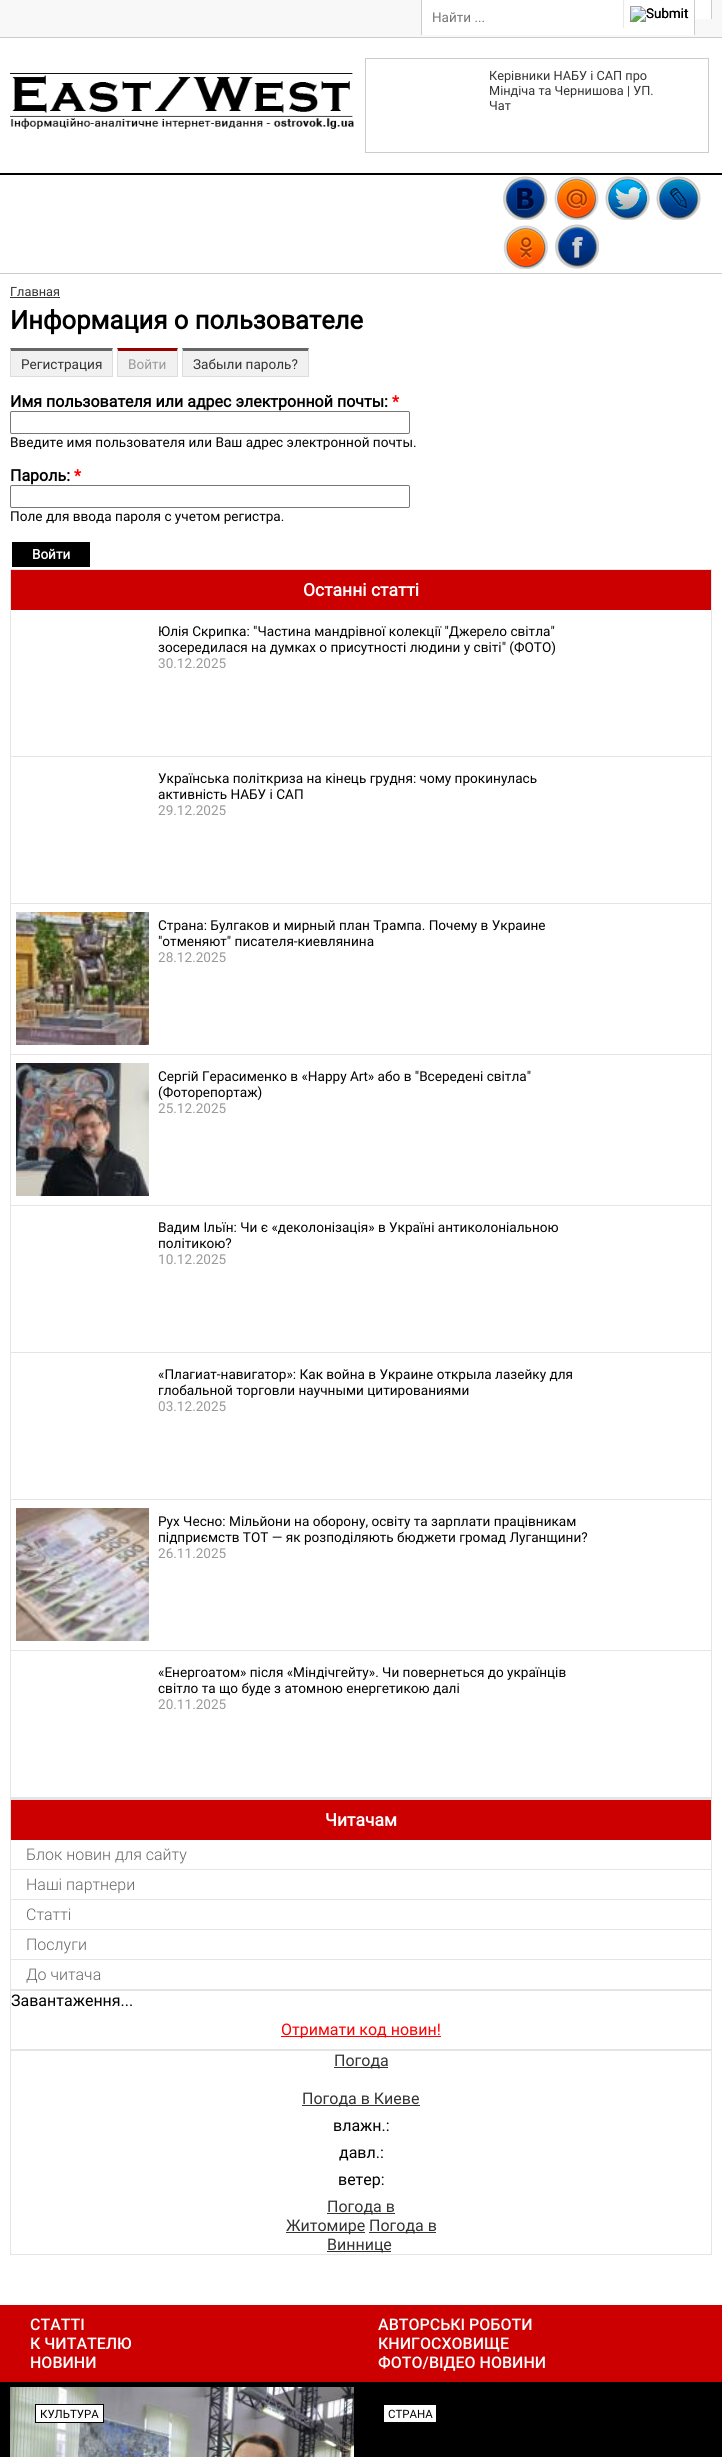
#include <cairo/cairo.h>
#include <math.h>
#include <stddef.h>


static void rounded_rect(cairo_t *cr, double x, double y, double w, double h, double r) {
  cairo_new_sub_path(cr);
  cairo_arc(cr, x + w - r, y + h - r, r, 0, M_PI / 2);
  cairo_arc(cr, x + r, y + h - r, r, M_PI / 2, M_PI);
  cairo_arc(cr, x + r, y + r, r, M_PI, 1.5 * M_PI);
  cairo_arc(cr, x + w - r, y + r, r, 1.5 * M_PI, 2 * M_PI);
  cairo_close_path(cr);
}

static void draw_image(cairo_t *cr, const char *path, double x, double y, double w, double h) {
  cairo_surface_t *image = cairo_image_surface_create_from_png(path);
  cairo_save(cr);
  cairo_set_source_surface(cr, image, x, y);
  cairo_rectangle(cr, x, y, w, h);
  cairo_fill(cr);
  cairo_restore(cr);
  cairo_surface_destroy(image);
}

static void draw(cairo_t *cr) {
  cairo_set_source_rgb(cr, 1, 1, 1);
  cairo_paint(cr);
  cairo_set_source_rgb(cr, 248 / 255.0, 248 / 255.0, 248 / 255.0);
  cairo_rectangle(cr, 0, 0, 722, 37);
  cairo_fill(cr);
  cairo_set_source_rgb(cr, 204 / 255.0, 204 / 255.0, 204 / 255.0);
  cairo_rectangle(cr, 0, 37, 722, 1);
  cairo_fill(cr);
  cairo_set_source_rgb(cr, 1, 1, 1);
  cairo_rectangle(cr, 422, 0, 272, 35);
  cairo_fill(cr);
  cairo_set_source_rgb(cr, 204 / 255.0, 204 / 255.0, 204 / 255.0);
  cairo_rectangle(cr, 694, 0, 1, 35);
  cairo_fill(cr);
  cairo_rectangle(cr, 421, 0, 1, 35);
  cairo_fill(cr);
  cairo_set_source_rgb(cr, 233 / 255.0, 233 / 255.0, 233 / 255.0);
  cairo_rectangle(cr, 623, 0, 1, 28);
  cairo_fill(cr);
  draw_image(cr, "images/1.png", 630, 6, 58, 16);
  cairo_set_source_rgb(cr, 1, 1, 1);
  cairo_rectangle(cr, 695, 0, 16, 19);
  cairo_fill(cr);
  cairo_set_source_rgb(cr, 204 / 255.0, 204 / 255.0, 204 / 255.0);
  cairo_rectangle(cr, 711, 0, 1, 19);
  cairo_fill(cr);
  draw_image(cr, "images/2.png", 10, 73, 344, 56);
  cairo_rectangle(cr, 365.5, 58.5, 343, 94);
  cairo_set_line_width(cr, 1);
  cairo_stroke(cr);
  cairo_set_source_rgb(cr, 0, 0, 0);
  cairo_rectangle(cr, 0, 173, 722, 2);
  cairo_fill(cr);
  cairo_set_source_rgb(cr, 204 / 255.0, 204 / 255.0, 204 / 255.0);
  cairo_rectangle(cr, 0, 273, 722, 1);
  cairo_fill(cr);
  draw_image(cr, "images/3.png", 503, 176, 45, 44);
  draw_image(cr, "images/4.png", 554, 176, 45, 44);
  draw_image(cr, "images/5.png", 605, 176, 45, 44);
  draw_image(cr, "images/6.png", 656, 176, 45, 44);
  draw_image(cr, "images/7.png", 503, 225, 45, 44);
  draw_image(cr, "images/8.png", 555, 224, 44, 45);
  cairo_set_source_rgb(cr, 51 / 255.0, 51 / 255.0, 51 / 255.0);
  cairo_rectangle(cr, 10, 297, 50, 1);
  cairo_fill(cr);
  cairo_set_source_rgb(cr, 241 / 255.0, 241 / 255.0, 241 / 255.0);
  cairo_rectangle(cr, 11, 351, 101, 25);
  cairo_fill(cr);
  cairo_set_source_rgb(cr, 102 / 255.0, 102 / 255.0, 102 / 255.0);
  cairo_new_path(cr);
  cairo_move_to(cr, 10, 348);
  cairo_line_to(cr, 113, 348);
  cairo_line_to(cr, 112, 351);
  cairo_line_to(cr, 11, 351);
  cairo_close_path(cr);
  cairo_fill(cr);
  cairo_set_source_rgb(cr, 221 / 255.0, 221 / 255.0, 221 / 255.0);
  cairo_new_path(cr);
  cairo_move_to(cr, 113, 348);
  cairo_line_to(cr, 113, 377);
  cairo_line_to(cr, 112, 376);
  cairo_line_to(cr, 112, 351);
  cairo_close_path(cr);
  cairo_fill(cr);
  cairo_rectangle(cr, 10, 376, 103, 1);
  cairo_fill(cr);
  cairo_new_path(cr);
  cairo_move_to(cr, 10, 377);
  cairo_line_to(cr, 10, 348);
  cairo_line_to(cr, 11, 351);
  cairo_line_to(cr, 11, 376);
  cairo_close_path(cr);
  cairo_fill(cr);
  cairo_set_source_rgb(cr, 241 / 255.0, 241 / 255.0, 241 / 255.0);
  cairo_rectangle(cr, 118, 351, 59, 25);
  cairo_fill(cr);
  cairo_set_source_rgb(cr, 153 / 255.0, 0, 0);
  cairo_new_path(cr);
  cairo_move_to(cr, 117, 348);
  cairo_line_to(cr, 178, 348);
  cairo_line_to(cr, 177, 351);
  cairo_line_to(cr, 118, 351);
  cairo_close_path(cr);
  cairo_fill(cr);
  cairo_set_source_rgb(cr, 221 / 255.0, 221 / 255.0, 221 / 255.0);
  cairo_new_path(cr);
  cairo_move_to(cr, 178, 348);
  cairo_line_to(cr, 178, 377);
  cairo_line_to(cr, 177, 376);
  cairo_line_to(cr, 177, 351);
  cairo_close_path(cr);
  cairo_fill(cr);
  cairo_rectangle(cr, 117, 376, 61, 1);
  cairo_fill(cr);
  cairo_new_path(cr);
  cairo_move_to(cr, 117, 377);
  cairo_line_to(cr, 117, 348);
  cairo_line_to(cr, 118, 351);
  cairo_line_to(cr, 118, 376);
  cairo_close_path(cr);
  cairo_fill(cr);
  cairo_set_source_rgb(cr, 241 / 255.0, 241 / 255.0, 241 / 255.0);
  cairo_rectangle(cr, 183, 351, 125, 25);
  cairo_fill(cr);
  cairo_set_source_rgb(cr, 102 / 255.0, 102 / 255.0, 102 / 255.0);
  cairo_new_path(cr);
  cairo_move_to(cr, 182, 348);
  cairo_line_to(cr, 309, 348);
  cairo_line_to(cr, 308, 351);
  cairo_line_to(cr, 183, 351);
  cairo_close_path(cr);
  cairo_fill(cr);
  cairo_set_source_rgb(cr, 221 / 255.0, 221 / 255.0, 221 / 255.0);
  cairo_new_path(cr);
  cairo_move_to(cr, 309, 348);
  cairo_line_to(cr, 309, 377);
  cairo_line_to(cr, 308, 376);
  cairo_line_to(cr, 308, 351);
  cairo_close_path(cr);
  cairo_fill(cr);
  cairo_rectangle(cr, 182, 376, 127, 1);
  cairo_fill(cr);
  cairo_new_path(cr);
  cairo_move_to(cr, 182, 377);
  cairo_line_to(cr, 182, 348);
  cairo_line_to(cr, 183, 351);
  cairo_line_to(cr, 183, 376);
  cairo_close_path(cr);
  cairo_fill(cr);
  rounded_rect(cr, 10.5, 411.5, 399, 22, 1.5);
  cairo_set_source_rgb(cr, 118 / 255.0, 118 / 255.0, 118 / 255.0);
  cairo_stroke(cr);
  rounded_rect(cr, 10.5, 485.5, 399, 22, 1.5);
  cairo_stroke(cr);
  cairo_set_source_rgb(cr, 0, 0, 0);
  cairo_rectangle(cr, 12, 542, 78, 25);
  cairo_fill(cr);
  cairo_rectangle(cr, 10.5, 569.5, 701, 1229);
  cairo_set_source_rgb(cr, 229 / 255.0, 229 / 255.0, 229 / 255.0);
  cairo_stroke(cr);
  cairo_set_source_rgb(cr, 204 / 255.0, 0, 0);
  cairo_rectangle(cr, 11, 570, 700, 40);
  cairo_fill(cr);
  cairo_set_source_rgb(cr, 229 / 255.0, 229 / 255.0, 229 / 255.0);
  cairo_rectangle(cr, 11, 756, 700, 1);
  cairo_fill(cr);
  cairo_rectangle(cr, 11, 903, 700, 1);
  cairo_fill(cr);
  cairo_rectangle(cr, 11, 1054, 700, 1);
  cairo_fill(cr);
  draw_image(cr, "images/9.png", 16, 912, 133, 133);
  cairo_rectangle(cr, 11, 1205, 700, 1);
  cairo_fill(cr);
  draw_image(cr, "images/10.png", 16, 1063, 133, 133);
  cairo_rectangle(cr, 11, 1352, 700, 1);
  cairo_fill(cr);
  cairo_rectangle(cr, 11, 1499, 700, 1);
  cairo_fill(cr);
  cairo_rectangle(cr, 11, 1650, 700, 1);
  cairo_fill(cr);
  draw_image(cr, "images/11.png", 16, 1508, 133, 133);
  cairo_rectangle(cr, 11, 1797, 700, 1);
  cairo_fill(cr);
  cairo_rectangle(cr, 10.5, 1799.5, 701, 190);
  cairo_stroke(cr);
  cairo_set_source_rgb(cr, 204 / 255.0, 0, 0);
  cairo_rectangle(cr, 11, 1800, 700, 40);
  cairo_fill(cr);
  cairo_set_source_rgb(cr, 229 / 255.0, 229 / 255.0, 229 / 255.0);
  cairo_rectangle(cr, 11, 1869, 700, 1);
  cairo_fill(cr);
  cairo_rectangle(cr, 11, 1899, 700, 1);
  cairo_fill(cr);
  cairo_rectangle(cr, 11, 1929, 700, 1);
  cairo_fill(cr);
  cairo_rectangle(cr, 11, 1959, 700, 1);
  cairo_fill(cr);
  cairo_rectangle(cr, 10.5, 1990.5, 701, 59);
  cairo_stroke(cr);
  cairo_set_source_rgb(cr, 1, 0, 0);
  cairo_rectangle(cr, 281, 2036, 160, 1);
  cairo_fill(cr);
  cairo_rectangle(cr, 10.5, 2050.5, 701, 204);
  cairo_set_source_rgb(cr, 229 / 255.0, 229 / 255.0, 229 / 255.0);
  cairo_stroke(cr);
  cairo_set_source_rgb(cr, 51 / 255.0, 51 / 255.0, 51 / 255.0);
  cairo_rectangle(cr, 334, 2067, 54, 1);
  cairo_fill(cr);
  cairo_rectangle(cr, 302, 2105, 118, 1);
  cairo_fill(cr);
  cairo_rectangle(cr, 327, 2213, 68, 1);
  cairo_fill(cr);
  cairo_rectangle(cr, 286, 2232, 79, 1);
  cairo_fill(cr);
  cairo_rectangle(cr, 369, 2232, 67, 1);
  cairo_fill(cr);
  cairo_rectangle(cr, 327, 2251, 64, 1);
  cairo_fill(cr);
  cairo_set_source_rgb(cr, 204 / 255.0, 0, 0);
  cairo_rectangle(cr, 0, 2305, 722, 77);
  cairo_fill(cr);
  cairo_set_source_rgb(cr, 0, 0, 0);
  cairo_rectangle(cr, 0, 2382, 722, 75);
  cairo_fill(cr);
  draw_image(cr, "images/12.png", 10, 2387, 344, 70);
  cairo_set_source_rgb(cr, 1, 1, 1);
  cairo_rectangle(cr, 35.5, 2404.5, 68, 18);
  cairo_fill_preserve(cr);
  cairo_set_source_rgb(cr, 0, 0, 0);
  cairo_stroke(cr);
  cairo_set_source_rgb(cr, 1, 1, 1);
  cairo_rectangle(cr, 384, 2405, 52, 17);
  cairo_fill(cr);
  cairo_select_font_face(cr, "Roboto", CAIRO_FONT_SLANT_NORMAL, CAIRO_FONT_WEIGHT_NORMAL);
  cairo_set_font_size(cr, 13.5);
  cairo_set_source_rgb(cr, 117 / 255.0, 117 / 255.0, 117 / 255.0);
  cairo_move_to(cr, 432, 22);
  cairo_show_text(cr, "Найти ...");
  cairo_set_source_rgb(cr, 0, 0, 0);
  cairo_move_to(cr, 646, 18);
  cairo_show_text(cr, "Submit");
  cairo_set_font_size(cr, 12.75);
  cairo_set_source_rgb(cr, 51 / 255.0, 51 / 255.0, 51 / 255.0);
  cairo_move_to(cr, 489, 80);
  cairo_show_text(cr, "Керівники НАБУ і САП про");
  cairo_move_to(cr, 489, 95);
  cairo_show_text(cr, "Міндіча та Чернишова | УП.");
  cairo_move_to(cr, 489, 110);
  cairo_show_text(cr, "Чат");
  cairo_move_to(cr, 10, 296);
  cairo_show_text(cr, "Главная");
  cairo_select_font_face(cr, "Roboto", CAIRO_FONT_SLANT_NORMAL, CAIRO_FONT_WEIGHT_BOLD);
  cairo_set_font_size(cr, 25.6);
  cairo_set_source_rgb(cr, 0, 0, 0);
  cairo_move_to(cr, 10, 329);
  cairo_show_text(cr, "Информация о пользователе");
  cairo_select_font_face(cr, "Roboto", CAIRO_FONT_SLANT_NORMAL, CAIRO_FONT_WEIGHT_NORMAL);
  cairo_set_font_size(cr, 13.6);
  cairo_set_source_rgb(cr, 51 / 255.0, 51 / 255.0, 51 / 255.0);
  cairo_move_to(cr, 21, 369);
  cairo_show_text(cr, "Регистрация");
  cairo_set_source_rgb(cr, 153 / 255.0, 153 / 255.0, 153 / 255.0);
  cairo_move_to(cr, 128, 369);
  cairo_show_text(cr, "Войти");
  cairo_set_source_rgb(cr, 51 / 255.0, 51 / 255.0, 51 / 255.0);
  cairo_move_to(cr, 193, 369);
  cairo_show_text(cr, "Забыли пароль?");
  cairo_select_font_face(cr, "Roboto", CAIRO_FONT_SLANT_NORMAL, CAIRO_FONT_WEIGHT_BOLD);
  cairo_set_font_size(cr, 16);
  cairo_set_source_rgb(cr, 0, 0, 0);
  cairo_move_to(cr, 10, 407);
  cairo_show_text(cr, "Имя пользователя или адрес электронной почты:");
  cairo_set_source_rgb(cr, 1, 0, 0);
  cairo_move_to(cr, 392, 407);
  cairo_show_text(cr, "*");
  cairo_select_font_face(cr, "Roboto", CAIRO_FONT_SLANT_NORMAL, CAIRO_FONT_WEIGHT_NORMAL);
  cairo_set_font_size(cr, 13.6);
  cairo_set_source_rgb(cr, 0, 0, 0);
  cairo_move_to(cr, 10, 447);
  cairo_show_text(cr, "Введите имя пользователя или Ваш адрес электронной почты.");
  cairo_select_font_face(cr, "Roboto", CAIRO_FONT_SLANT_NORMAL, CAIRO_FONT_WEIGHT_BOLD);
  cairo_set_font_size(cr, 16);
  cairo_move_to(cr, 10, 481);
  cairo_show_text(cr, "Пароль:");
  cairo_set_source_rgb(cr, 1, 0, 0);
  cairo_move_to(cr, 74, 481);
  cairo_show_text(cr, "*");
  cairo_select_font_face(cr, "Roboto", CAIRO_FONT_SLANT_NORMAL, CAIRO_FONT_WEIGHT_NORMAL);
  cairo_set_font_size(cr, 13.6);
  cairo_set_source_rgb(cr, 0, 0, 0);
  cairo_move_to(cr, 10, 521);
  cairo_show_text(cr, "Поле для ввода пароля с учетом регистра.");
  cairo_select_font_face(cr, "Roboto", CAIRO_FONT_SLANT_NORMAL, CAIRO_FONT_WEIGHT_BOLD);
  cairo_set_font_size(cr, 13.5);
  cairo_set_source_rgb(cr, 1, 1, 1);
  cairo_move_to(cr, 32, 559);
  cairo_show_text(cr, "Войти");
  cairo_set_font_size(cr, 17.5);
  cairo_move_to(cr, 303, 596);
  cairo_show_text(cr, "Останні статті");
  cairo_select_font_face(cr, "Roboto", CAIRO_FONT_SLANT_NORMAL, CAIRO_FONT_WEIGHT_NORMAL);
  cairo_set_font_size(cr, 13.6);
  cairo_set_source_rgb(cr, 0, 0, 0);
  cairo_move_to(cr, 158, 636);
  cairo_show_text(cr, "Юлія Скрипка: \"Частина мандрівної колекції \"Джерело світла\"");
  cairo_move_to(cr, 158, 652);
  cairo_show_text(cr, "зосередилася на думках о присутності людини у світі\" (ФОТО)");
  cairo_set_source_rgb(cr, 153 / 255.0, 153 / 255.0, 153 / 255.0);
  cairo_move_to(cr, 158, 668);
  cairo_show_text(cr, "30.12.2025");
  cairo_set_source_rgb(cr, 0, 0, 0);
  cairo_move_to(cr, 158, 783);
  cairo_show_text(cr, "Українська політкриза на кінець грудня: чому прокинулась");
  cairo_move_to(cr, 158, 799);
  cairo_show_text(cr, "активність НАБУ і САП");
  cairo_set_source_rgb(cr, 153 / 255.0, 153 / 255.0, 153 / 255.0);
  cairo_move_to(cr, 158, 815);
  cairo_show_text(cr, "29.12.2025");
  cairo_set_source_rgb(cr, 0, 0, 0);
  cairo_move_to(cr, 158, 930);
  cairo_show_text(cr, "Страна: Булгаков и мирный план Трампа. Почему в Украине");
  cairo_move_to(cr, 158, 946);
  cairo_show_text(cr, "\"отменяют\" писателя-киевлянина");
  cairo_set_source_rgb(cr, 153 / 255.0, 153 / 255.0, 153 / 255.0);
  cairo_move_to(cr, 158, 962);
  cairo_show_text(cr, "28.12.2025");
  cairo_set_source_rgb(cr, 0, 0, 0);
  cairo_move_to(cr, 158, 1081);
  cairo_show_text(cr, "Сергій Герасименко в «Happy Art» або в \"Всередені світла\"");
  cairo_move_to(cr, 158, 1097);
  cairo_show_text(cr, "(Фоторепортаж)");
  cairo_set_source_rgb(cr, 153 / 255.0, 153 / 255.0, 153 / 255.0);
  cairo_move_to(cr, 158, 1113);
  cairo_show_text(cr, "25.12.2025");
  cairo_set_source_rgb(cr, 0, 0, 0);
  cairo_move_to(cr, 158, 1232);
  cairo_show_text(cr, "Вадим Ільїн: Чи є «деколонізація» в Україні антиколоніальною");
  cairo_move_to(cr, 158, 1248);
  cairo_show_text(cr, "політикою?");
  cairo_set_source_rgb(cr, 153 / 255.0, 153 / 255.0, 153 / 255.0);
  cairo_move_to(cr, 158, 1264);
  cairo_show_text(cr, "10.12.2025");
  cairo_set_source_rgb(cr, 0, 0, 0);
  cairo_move_to(cr, 158, 1379);
  cairo_show_text(cr, "«Плагиат-навигатор»: Как война в Украине открыла лазейку для");
  cairo_move_to(cr, 158, 1395);
  cairo_show_text(cr, "глобальной торговли научными цитированиями");
  cairo_set_source_rgb(cr, 153 / 255.0, 153 / 255.0, 153 / 255.0);
  cairo_move_to(cr, 158, 1411);
  cairo_show_text(cr, "03.12.2025");
  cairo_set_source_rgb(cr, 0, 0, 0);
  cairo_move_to(cr, 158, 1526);
  cairo_show_text(cr, "Рух Чесно: Мільйони на оборону, освіту та зарплати працівникам");
  cairo_move_to(cr, 158, 1542);
  cairo_show_text(cr, "підприємств ТОТ — як розподіляють бюджети громад Луганщини?");
  cairo_set_source_rgb(cr, 153 / 255.0, 153 / 255.0, 153 / 255.0);
  cairo_move_to(cr, 158, 1558);
  cairo_show_text(cr, "26.11.2025");
  cairo_set_source_rgb(cr, 0, 0, 0);
  cairo_move_to(cr, 158, 1677);
  cairo_show_text(cr, "«Енергоатом» після «Міндічгейту». Чи повернеться до українців");
  cairo_move_to(cr, 158, 1693);
  cairo_show_text(cr, "світло та що буде з атомною енергетикою далі");
  cairo_set_source_rgb(cr, 153 / 255.0, 153 / 255.0, 153 / 255.0);
  cairo_move_to(cr, 158, 1709);
  cairo_show_text(cr, "20.11.2025");
  cairo_select_font_face(cr, "Roboto", CAIRO_FONT_SLANT_NORMAL, CAIRO_FONT_WEIGHT_BOLD);
  cairo_set_font_size(cr, 17.5);
  cairo_set_source_rgb(cr, 1, 1, 1);
  cairo_move_to(cr, 325, 1826);
  cairo_show_text(cr, "Читачам");
  cairo_select_font_face(cr, "Roboto Light", CAIRO_FONT_SLANT_NORMAL, CAIRO_FONT_WEIGHT_NORMAL);
  cairo_set_font_size(cr, 16);
  cairo_set_source_rgb(cr, 102 / 255.0, 102 / 255.0, 102 / 255.0);
  cairo_move_to(cr, 26, 1860);
  cairo_show_text(cr, "Блок новин для сайту");
  cairo_move_to(cr, 26, 1890);
  cairo_show_text(cr, "Наші партнери");
  cairo_move_to(cr, 26, 1920);
  cairo_show_text(cr, "Статті");
  cairo_move_to(cr, 26, 1950);
  cairo_show_text(cr, "Послуги");
  cairo_move_to(cr, 26, 1980);
  cairo_show_text(cr, "До читача");
  cairo_select_font_face(cr, "Roboto", CAIRO_FONT_SLANT_NORMAL, CAIRO_FONT_WEIGHT_NORMAL);
  cairo_set_source_rgb(cr, 0, 0, 0);
  cairo_move_to(cr, 11, 2006);
  cairo_show_text(cr, "Завантаження...");
  cairo_set_source_rgb(cr, 1, 0, 0);
  cairo_move_to(cr, 281, 2035);
  cairo_show_text(cr, "Отримати код новин!");
  cairo_set_source_rgb(cr, 51 / 255.0, 51 / 255.0, 51 / 255.0);
  cairo_move_to(cr, 334, 2066);
  cairo_show_text(cr, "Погода");
  cairo_move_to(cr, 302, 2104);
  cairo_show_text(cr, "Погода в Киеве");
  cairo_set_source_rgb(cr, 0, 0, 0);
  cairo_move_to(cr, 333, 2131);
  cairo_show_text(cr, "влажн.:");
  cairo_move_to(cr, 339, 2158);
  cairo_show_text(cr, "давл.:");
  cairo_move_to(cr, 338, 2185);
  cairo_show_text(cr, "ветер:");
  cairo_set_source_rgb(cr, 51 / 255.0, 51 / 255.0, 51 / 255.0);
  cairo_move_to(cr, 327, 2212);
  cairo_show_text(cr, "Погода в");
  cairo_move_to(cr, 286, 2231);
  cairo_show_text(cr, "Житомире");
  cairo_move_to(cr, 369, 2231);
  cairo_show_text(cr, "Погода в");
  cairo_move_to(cr, 327, 2250);
  cairo_show_text(cr, "Виннице");
  cairo_select_font_face(cr, "Roboto Medium", CAIRO_FONT_SLANT_NORMAL, CAIRO_FONT_WEIGHT_NORMAL);
  cairo_set_source_rgb(cr, 1, 1, 1);
  cairo_move_to(cr, 30, 2330);
  cairo_show_text(cr, "CТАТТІ");
  cairo_move_to(cr, 378, 2330);
  cairo_show_text(cr, "АВТОРСЬКІ РОБОТИ");
  cairo_move_to(cr, 30, 2349);
  cairo_show_text(cr, "К ЧИТАТЕЛЮ");
  cairo_move_to(cr, 378, 2349);
  cairo_show_text(cr, "КНИГОСХОВИЩЕ");
  cairo_move_to(cr, 30, 2368);
  cairo_show_text(cr, "НОВИНИ");
  cairo_move_to(cr, 378, 2368);
  cairo_show_text(cr, "ФОТО/ВІДЕО НОВИНИ");
  cairo_select_font_face(cr, "Roboto", CAIRO_FONT_SLANT_NORMAL, CAIRO_FONT_WEIGHT_NORMAL);
  cairo_set_font_size(cr, 11.5);
  cairo_set_source_rgb(cr, 0, 0, 0);
  cairo_move_to(cr, 40, 2418);
  cairo_show_text(cr, "КУЛЬТУРА");
  cairo_move_to(cr, 388, 2418);
  cairo_show_text(cr, "СТРАНА");
}

int main(void) {
  cairo_surface_t *surface = cairo_image_surface_create(CAIRO_FORMAT_RGB24, 722, 2457);
  cairo_t *cr = cairo_create(surface);
  cairo_font_options_t *options = cairo_font_options_create();
  cairo_font_options_set_hint_metrics(options, CAIRO_HINT_METRICS_OFF);
  cairo_font_options_set_hint_style(options, CAIRO_HINT_STYLE_NONE);
  cairo_set_font_options(cr, options);
  cairo_set_miter_limit(cr, 4);
  draw(cr);
  cairo_surface_write_to_png(surface, "out.png");
  cairo_font_options_destroy(options);
  cairo_destroy(cr);
  cairo_surface_destroy(surface);
  return 0;
}
